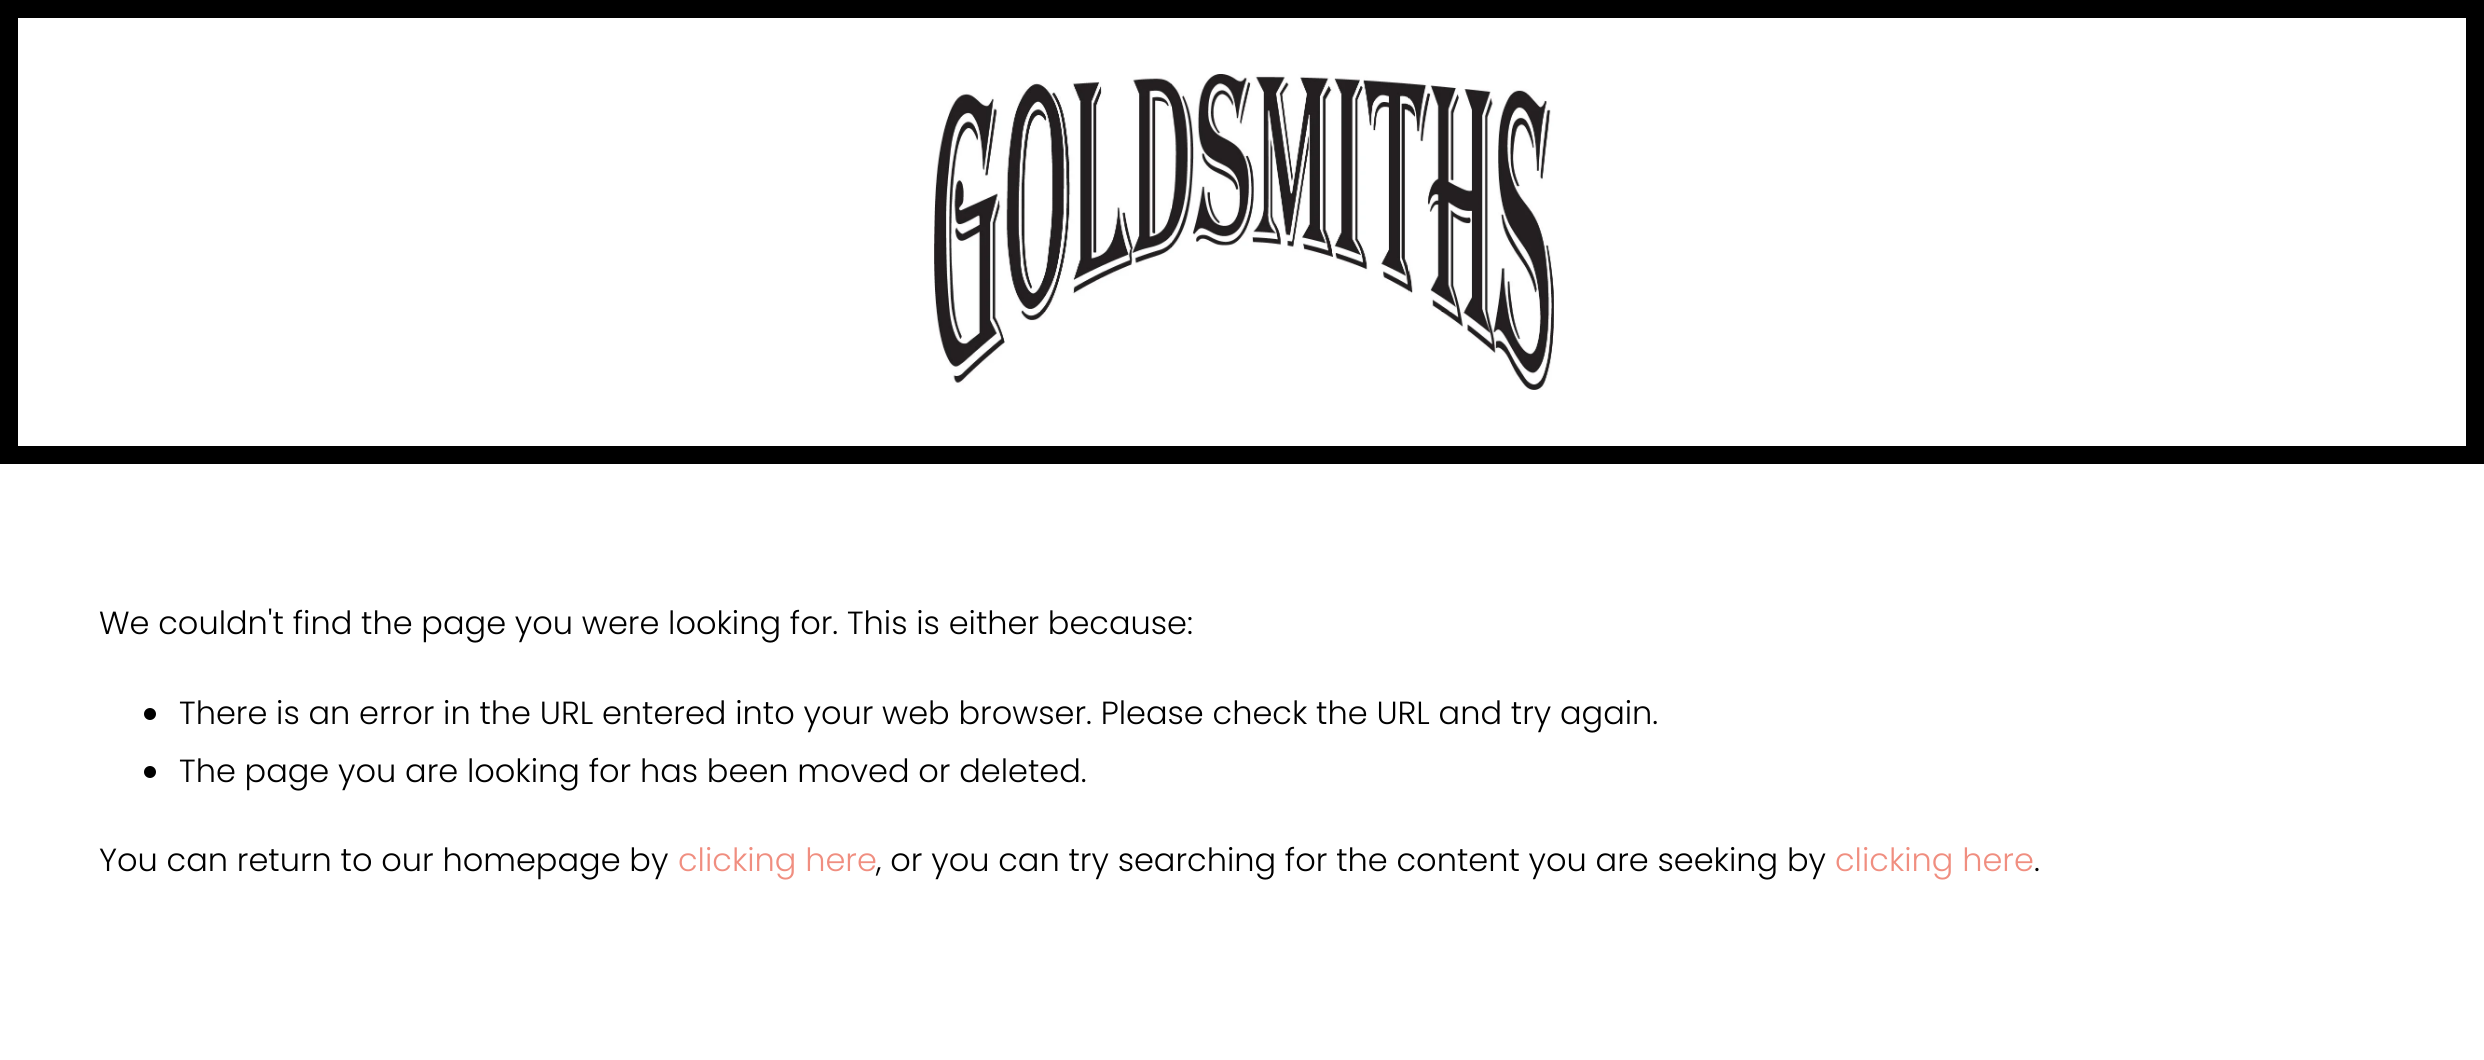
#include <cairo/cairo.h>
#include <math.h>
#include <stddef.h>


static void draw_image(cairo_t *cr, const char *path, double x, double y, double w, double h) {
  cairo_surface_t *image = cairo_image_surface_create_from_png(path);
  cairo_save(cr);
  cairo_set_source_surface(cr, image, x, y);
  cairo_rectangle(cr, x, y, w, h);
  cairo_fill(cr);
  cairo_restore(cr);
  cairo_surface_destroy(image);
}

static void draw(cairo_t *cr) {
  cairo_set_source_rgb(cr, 1, 1, 1);
  cairo_paint(cr);
  cairo_rectangle(cr, 9, 9, 2466, 446);
  cairo_set_source_rgb(cr, 0, 0, 0);
  cairo_set_line_width(cr, 18);
  cairo_stroke(cr);
  draw_image(cr, "images/1.png", 934, 74, 620, 316);
  cairo_arc(cr, 150, 714, 6, 0, 2 * M_PI);
  cairo_fill(cr);
  cairo_arc(cr, 150, 772, 6, 0, 2 * M_PI);
  cairo_fill(cr);
  cairo_select_font_face(cr, "Poppins Light", CAIRO_FONT_SLANT_NORMAL, CAIRO_FONT_WEIGHT_NORMAL);
  cairo_set_font_size(cr, 32);
  cairo_move_to(cr, 99, 634);
  cairo_show_text(cr, "We couldn't find the page you were looking for. This is either because:");
  cairo_move_to(cr, 179, 724);
  cairo_show_text(cr, "There is an error in the URL entered into your web browser. Please check the URL and try again.");
  cairo_move_to(cr, 179, 782);
  cairo_show_text(cr, "The page you are looking for has been moved or deleted.");
  cairo_move_to(cr, 99, 871);
  cairo_show_text(cr, "You can return to our homepage by");
  cairo_set_source_rgb(cr, 240 / 255.0, 142 / 255.0, 128 / 255.0);
  cairo_move_to(cr, 678, 871);
  cairo_show_text(cr, "clicking here");
  cairo_set_source_rgb(cr, 0, 0, 0);
  cairo_move_to(cr, 876, 871);
  cairo_show_text(cr, ", or you can try searching for the content you are seeking by");
  cairo_set_source_rgb(cr, 240 / 255.0, 142 / 255.0, 128 / 255.0);
  cairo_move_to(cr, 1835, 871);
  cairo_show_text(cr, "clicking here");
  cairo_set_source_rgb(cr, 0, 0, 0);
  cairo_move_to(cr, 2034, 871);
  cairo_show_text(cr, ".");
}

int main(void) {
  cairo_surface_t *surface = cairo_image_surface_create(CAIRO_FORMAT_RGB24, 2484, 1060);
  cairo_t *cr = cairo_create(surface);
  cairo_font_options_t *options = cairo_font_options_create();
  cairo_font_options_set_hint_metrics(options, CAIRO_HINT_METRICS_OFF);
  cairo_font_options_set_hint_style(options, CAIRO_HINT_STYLE_NONE);
  cairo_set_font_options(cr, options);
  cairo_set_miter_limit(cr, 4);
  draw(cr);
  cairo_surface_write_to_png(surface, "out.png");
  cairo_font_options_destroy(options);
  cairo_destroy(cr);
  cairo_surface_destroy(surface);
  return 0;
}
